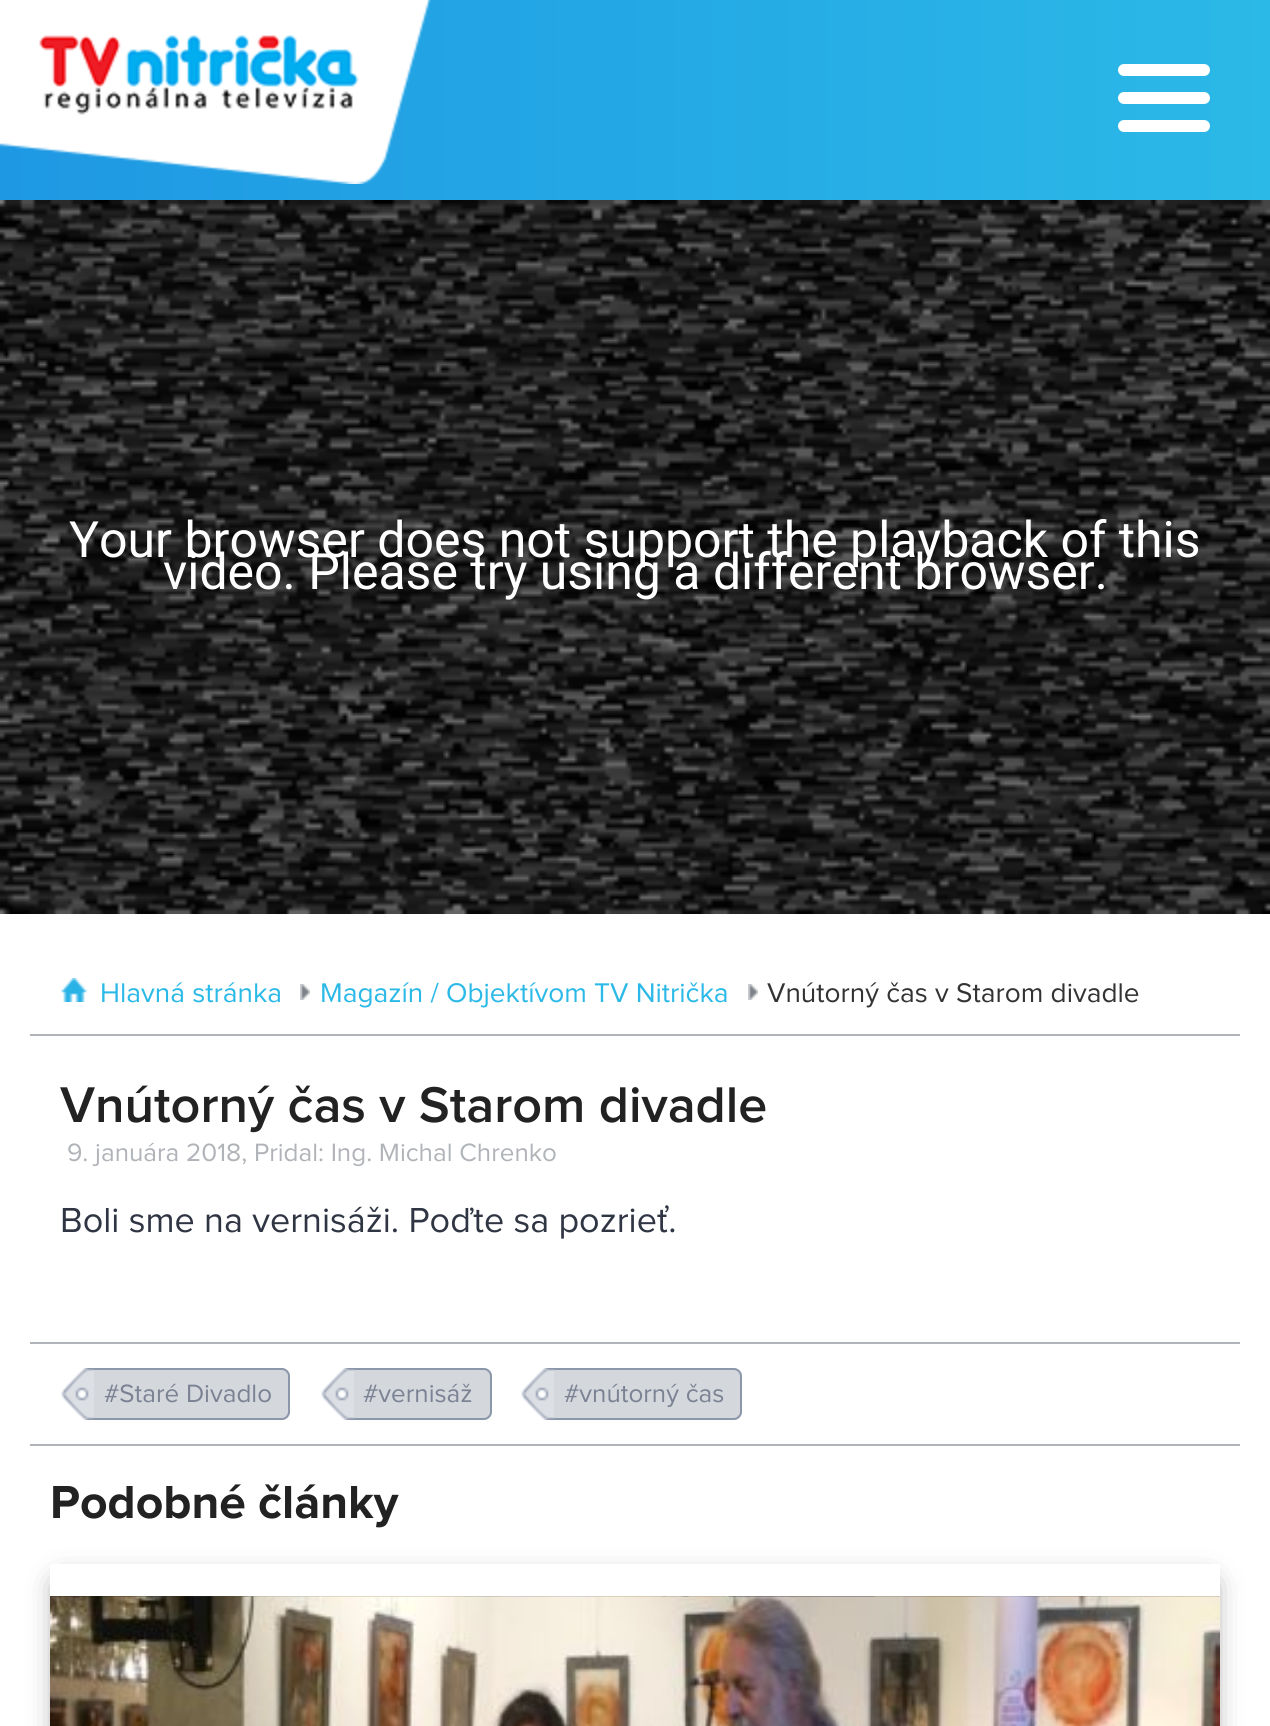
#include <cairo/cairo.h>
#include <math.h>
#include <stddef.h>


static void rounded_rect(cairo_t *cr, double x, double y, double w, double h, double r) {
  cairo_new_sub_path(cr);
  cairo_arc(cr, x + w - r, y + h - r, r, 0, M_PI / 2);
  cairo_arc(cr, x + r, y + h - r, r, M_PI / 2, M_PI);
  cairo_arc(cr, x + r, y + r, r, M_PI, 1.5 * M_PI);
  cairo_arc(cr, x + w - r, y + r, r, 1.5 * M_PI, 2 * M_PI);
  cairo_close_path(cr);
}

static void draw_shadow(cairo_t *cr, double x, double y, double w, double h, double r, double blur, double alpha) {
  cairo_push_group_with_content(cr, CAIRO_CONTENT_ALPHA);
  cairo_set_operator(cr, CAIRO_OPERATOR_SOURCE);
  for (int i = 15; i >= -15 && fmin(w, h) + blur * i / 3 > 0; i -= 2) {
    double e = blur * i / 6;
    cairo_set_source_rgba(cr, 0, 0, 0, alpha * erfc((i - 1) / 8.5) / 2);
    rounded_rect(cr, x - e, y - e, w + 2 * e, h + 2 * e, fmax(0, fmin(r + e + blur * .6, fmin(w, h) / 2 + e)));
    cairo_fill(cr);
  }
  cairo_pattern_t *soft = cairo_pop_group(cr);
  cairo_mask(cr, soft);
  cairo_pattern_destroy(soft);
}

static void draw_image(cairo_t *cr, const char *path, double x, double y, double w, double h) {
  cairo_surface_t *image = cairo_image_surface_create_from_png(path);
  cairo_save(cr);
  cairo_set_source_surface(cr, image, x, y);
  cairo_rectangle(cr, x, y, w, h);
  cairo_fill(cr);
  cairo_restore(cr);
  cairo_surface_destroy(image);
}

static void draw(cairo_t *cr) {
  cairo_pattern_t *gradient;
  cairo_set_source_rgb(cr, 1, 1, 1);
  cairo_paint(cr);
  gradient = cairo_pattern_create_linear(0, 100, 1270, 100);
  cairo_pattern_add_color_stop_rgba(gradient, 0, 30 / 255.0, 152 / 255.0, 227 / 255.0, 1);
  cairo_pattern_add_color_stop_rgba(gradient, 1, 43 / 255.0, 185 / 255.0, 231 / 255.0, 1);
  cairo_set_source(cr, gradient);
  cairo_pattern_destroy(gradient);
  cairo_rectangle(cr, 0, 0, 1270, 200);
  cairo_fill(cr);
  draw_image(cr, "images/1.png", 0, 0, 431, 184);
  cairo_set_source_rgb(cr, 1, 1, 1);
  rounded_rect(cr, 1118, 64, 92, 12, 6);
  cairo_fill(cr);
  rounded_rect(cr, 1118, 92, 92, 12, 6);
  cairo_fill(cr);
  rounded_rect(cr, 1118, 120, 92, 12, 6);
  cairo_fill(cr);
  cairo_set_source_rgb(cr, 119 / 255.0, 119 / 255.0, 119 / 255.0);
  cairo_rectangle(cr, 0, 200, 1270, 714);
  cairo_fill(cr);
  draw_image(cr, "images/2.png", 0, 200, 1270, 714);
  cairo_set_source_rgb(cr, 176 / 255.0, 179 / 255.0, 184 / 255.0);
  cairo_rectangle(cr, 30, 1034, 1210, 2);
  cairo_fill(cr);
  draw_image(cr, "images/3.png", 60, 978, 28, 24);
  draw_image(cr, "images/4.png", 300, 984, 10, 16);
  draw_image(cr, "images/4.png", 748, 984, 10, 16);
  cairo_rectangle(cr, 30, 1342, 1210, 2);
  cairo_fill(cr);
  cairo_rectangle(cr, 30, 1444, 1210, 2);
  cairo_fill(cr);
  cairo_set_source_rgb(cr, 212 / 255.0, 215 / 255.0, 220 / 255.0);
  cairo_new_path(cr);
  cairo_move_to(cr, 94, 1368);
  cairo_line_to(cr, 282, 1368);
  cairo_curve_to(cr, 286.5, 1368, 290, 1371.5, 290, 1376);
  cairo_line_to(cr, 290, 1412);
  cairo_curve_to(cr, 290, 1416.5, 286.5, 1420, 282, 1420);
  cairo_line_to(cr, 94, 1420);
  cairo_close_path(cr);
  cairo_fill(cr);
  cairo_set_source_rgb(cr, 141 / 255.0, 151 / 255.0, 171 / 255.0);
  cairo_set_fill_rule(cr, CAIRO_FILL_RULE_EVEN_ODD);
  cairo_new_path(cr);
  cairo_move_to(cr, 94, 1368);
  cairo_line_to(cr, 282, 1368);
  cairo_curve_to(cr, 286, 1368, 290, 1372, 290, 1376);
  cairo_line_to(cr, 290, 1412);
  cairo_curve_to(cr, 290, 1416, 286, 1420, 282, 1420);
  cairo_line_to(cr, 94, 1420);
  cairo_close_path(cr);
  cairo_move_to(cr, 94, 1370);
  cairo_line_to(cr, 282, 1370);
  cairo_curve_to(cr, 285, 1370, 288, 1373, 288, 1376);
  cairo_line_to(cr, 288, 1412);
  cairo_curve_to(cr, 288, 1415, 285, 1418, 282, 1418);
  cairo_line_to(cr, 94, 1418);
  cairo_close_path(cr);
  cairo_fill(cr);
  draw_image(cr, "images/5.png", 61, 1368, 33, 52);
  cairo_set_source_rgb(cr, 212 / 255.0, 215 / 255.0, 220 / 255.0);
  cairo_new_path(cr);
  cairo_move_to(cr, 354, 1368);
  cairo_line_to(cr, 484, 1368);
  cairo_curve_to(cr, 488.5, 1368, 492, 1371.5, 492, 1376);
  cairo_line_to(cr, 492, 1412);
  cairo_curve_to(cr, 492, 1416.5, 488.5, 1420, 484, 1420);
  cairo_line_to(cr, 354, 1420);
  cairo_close_path(cr);
  cairo_fill(cr);
  cairo_set_source_rgb(cr, 141 / 255.0, 151 / 255.0, 171 / 255.0);
  cairo_new_path(cr);
  cairo_move_to(cr, 354, 1368);
  cairo_line_to(cr, 484, 1368);
  cairo_curve_to(cr, 488, 1368, 492, 1372, 492, 1376);
  cairo_line_to(cr, 492, 1412);
  cairo_curve_to(cr, 492, 1416, 488, 1420, 484, 1420);
  cairo_line_to(cr, 354, 1420);
  cairo_close_path(cr);
  cairo_move_to(cr, 354, 1370);
  cairo_line_to(cr, 484, 1370);
  cairo_curve_to(cr, 487, 1370, 490, 1373, 490, 1376);
  cairo_line_to(cr, 490, 1412);
  cairo_curve_to(cr, 490, 1415, 487, 1418, 484, 1418);
  cairo_line_to(cr, 354, 1418);
  cairo_close_path(cr);
  cairo_fill(cr);
  draw_image(cr, "images/5.png", 321, 1368, 33, 52);
  cairo_set_source_rgb(cr, 212 / 255.0, 215 / 255.0, 220 / 255.0);
  cairo_new_path(cr);
  cairo_move_to(cr, 554, 1368);
  cairo_line_to(cr, 734, 1368);
  cairo_curve_to(cr, 738.5, 1368, 742, 1371.5, 742, 1376);
  cairo_line_to(cr, 742, 1412);
  cairo_curve_to(cr, 742, 1416.5, 738.5, 1420, 734, 1420);
  cairo_line_to(cr, 554, 1420);
  cairo_close_path(cr);
  cairo_fill(cr);
  cairo_set_source_rgb(cr, 141 / 255.0, 151 / 255.0, 171 / 255.0);
  cairo_new_path(cr);
  cairo_move_to(cr, 554, 1368);
  cairo_line_to(cr, 734, 1368);
  cairo_curve_to(cr, 738, 1368, 742, 1372, 742, 1376);
  cairo_line_to(cr, 742, 1412);
  cairo_curve_to(cr, 742, 1416, 738, 1420, 734, 1420);
  cairo_line_to(cr, 554, 1420);
  cairo_close_path(cr);
  cairo_move_to(cr, 554, 1370);
  cairo_line_to(cr, 734, 1370);
  cairo_curve_to(cr, 737, 1370, 740, 1373, 740, 1376);
  cairo_line_to(cr, 740, 1412);
  cairo_curve_to(cr, 740, 1415, 737, 1418, 734, 1418);
  cairo_line_to(cr, 554, 1418);
  cairo_close_path(cr);
  cairo_fill(cr);
  draw_image(cr, "images/5.png", 521, 1368, 33, 52);
  cairo_save(cr);
  cairo_new_path(cr);
  cairo_move_to(cr, 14, 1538);
  cairo_line_to(cr, 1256, 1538);
  cairo_line_to(cr, 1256, 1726);
  cairo_line_to(cr, 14, 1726);
  cairo_close_path(cr);
  cairo_move_to(cr, 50, 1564);
  cairo_line_to(cr, 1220, 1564);
  cairo_line_to(cr, 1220, 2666);
  cairo_line_to(cr, 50, 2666);
  cairo_close_path(cr);
  cairo_clip(cr);
  cairo_set_source_rgb(cr, 0, 0, 0);
  draw_shadow(cr, 60, 1584, 1150, 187, 0, 15, 0.5);
  cairo_restore(cr);
  draw_image(cr, "images/6.png", 50, 1596, 1170, 130);
  cairo_select_font_face(cr, "Roboto", CAIRO_FONT_SLANT_NORMAL, CAIRO_FONT_WEIGHT_NORMAL);
  cairo_set_font_size(cr, 50);
  cairo_set_source_rgb(cr, 1, 1, 1);
  cairo_move_to(cr, 69, 557);
  cairo_show_text(cr, "Your browser does not support the playback of this");
  cairo_move_to(cr, 163, 589);
  cairo_show_text(cr, "video. Please try using a different browser.");
  cairo_select_font_face(cr, "Proxima Nova", CAIRO_FONT_SLANT_NORMAL, CAIRO_FONT_WEIGHT_NORMAL);
  cairo_set_font_size(cr, 28);
  cairo_set_source_rgb(cr, 43 / 255.0, 185 / 255.0, 231 / 255.0);
  cairo_move_to(cr, 100, 1002);
  cairo_show_text(cr, "Hlavná stránka");
  cairo_move_to(cr, 320, 1002);
  cairo_show_text(cr, "Magazín / Objektívom TV Nitrička");
  cairo_set_source_rgb(cr, 51 / 255.0, 51 / 255.0, 51 / 255.0);
  cairo_move_to(cr, 767, 1002);
  cairo_show_text(cr, "Vnútorný čas v Starom divadle");
  cairo_select_font_face(cr, "Proxima Nova SemiBold", CAIRO_FONT_SLANT_NORMAL, CAIRO_FONT_WEIGHT_NORMAL);
  cairo_set_font_size(cr, 52);
  cairo_set_source_rgb(cr, 34 / 255.0, 34 / 255.0, 34 / 255.0);
  cairo_move_to(cr, 60, 1122);
  cairo_show_text(cr, "Vnútorný čas v Starom divadle");
  cairo_select_font_face(cr, "Proxima Nova", CAIRO_FONT_SLANT_NORMAL, CAIRO_FONT_WEIGHT_NORMAL);
  cairo_set_font_size(cr, 26);
  cairo_set_source_rgb(cr, 176 / 255.0, 179 / 255.0, 184 / 255.0);
  cairo_move_to(cr, 67, 1161);
  cairo_show_text(cr, "9. januára 2018, Pridal: Ing. Michal Chrenko");
  cairo_set_font_size(cr, 36);
  cairo_set_source_rgb(cr, 47 / 255.0, 53 / 255.0, 67 / 255.0);
  cairo_move_to(cr, 60, 1232);
  cairo_show_text(cr, "Boli sme na vernisáži. Poďte sa pozrieť.");
  cairo_set_font_size(cr, 26);
  cairo_set_source_rgb(cr, 123 / 255.0, 130 / 255.0, 147 / 255.0);
  cairo_move_to(cr, 104, 1402);
  cairo_show_text(cr, "#Staré Divadlo");
  cairo_move_to(cr, 363, 1402);
  cairo_show_text(cr, "#vernisáž");
  cairo_move_to(cr, 564, 1402);
  cairo_show_text(cr, "#vnútorný čas");
  cairo_select_font_face(cr, "Proxima Nova", CAIRO_FONT_SLANT_NORMAL, CAIRO_FONT_WEIGHT_BOLD);
  cairo_set_font_size(cr, 48);
  cairo_set_source_rgb(cr, 34 / 255.0, 34 / 255.0, 34 / 255.0);
  cairo_move_to(cr, 50, 1518);
  cairo_show_text(cr, "Podobné články");
}

int main(void) {
  cairo_surface_t *surface = cairo_image_surface_create(CAIRO_FORMAT_RGB24, 1270, 1726);
  cairo_t *cr = cairo_create(surface);
  cairo_font_options_t *options = cairo_font_options_create();
  cairo_font_options_set_hint_metrics(options, CAIRO_HINT_METRICS_OFF);
  cairo_font_options_set_hint_style(options, CAIRO_HINT_STYLE_NONE);
  cairo_set_font_options(cr, options);
  cairo_set_miter_limit(cr, 4);
  draw(cr);
  cairo_surface_write_to_png(surface, "out.png");
  cairo_font_options_destroy(options);
  cairo_destroy(cr);
  cairo_surface_destroy(surface);
  return 0;
}
